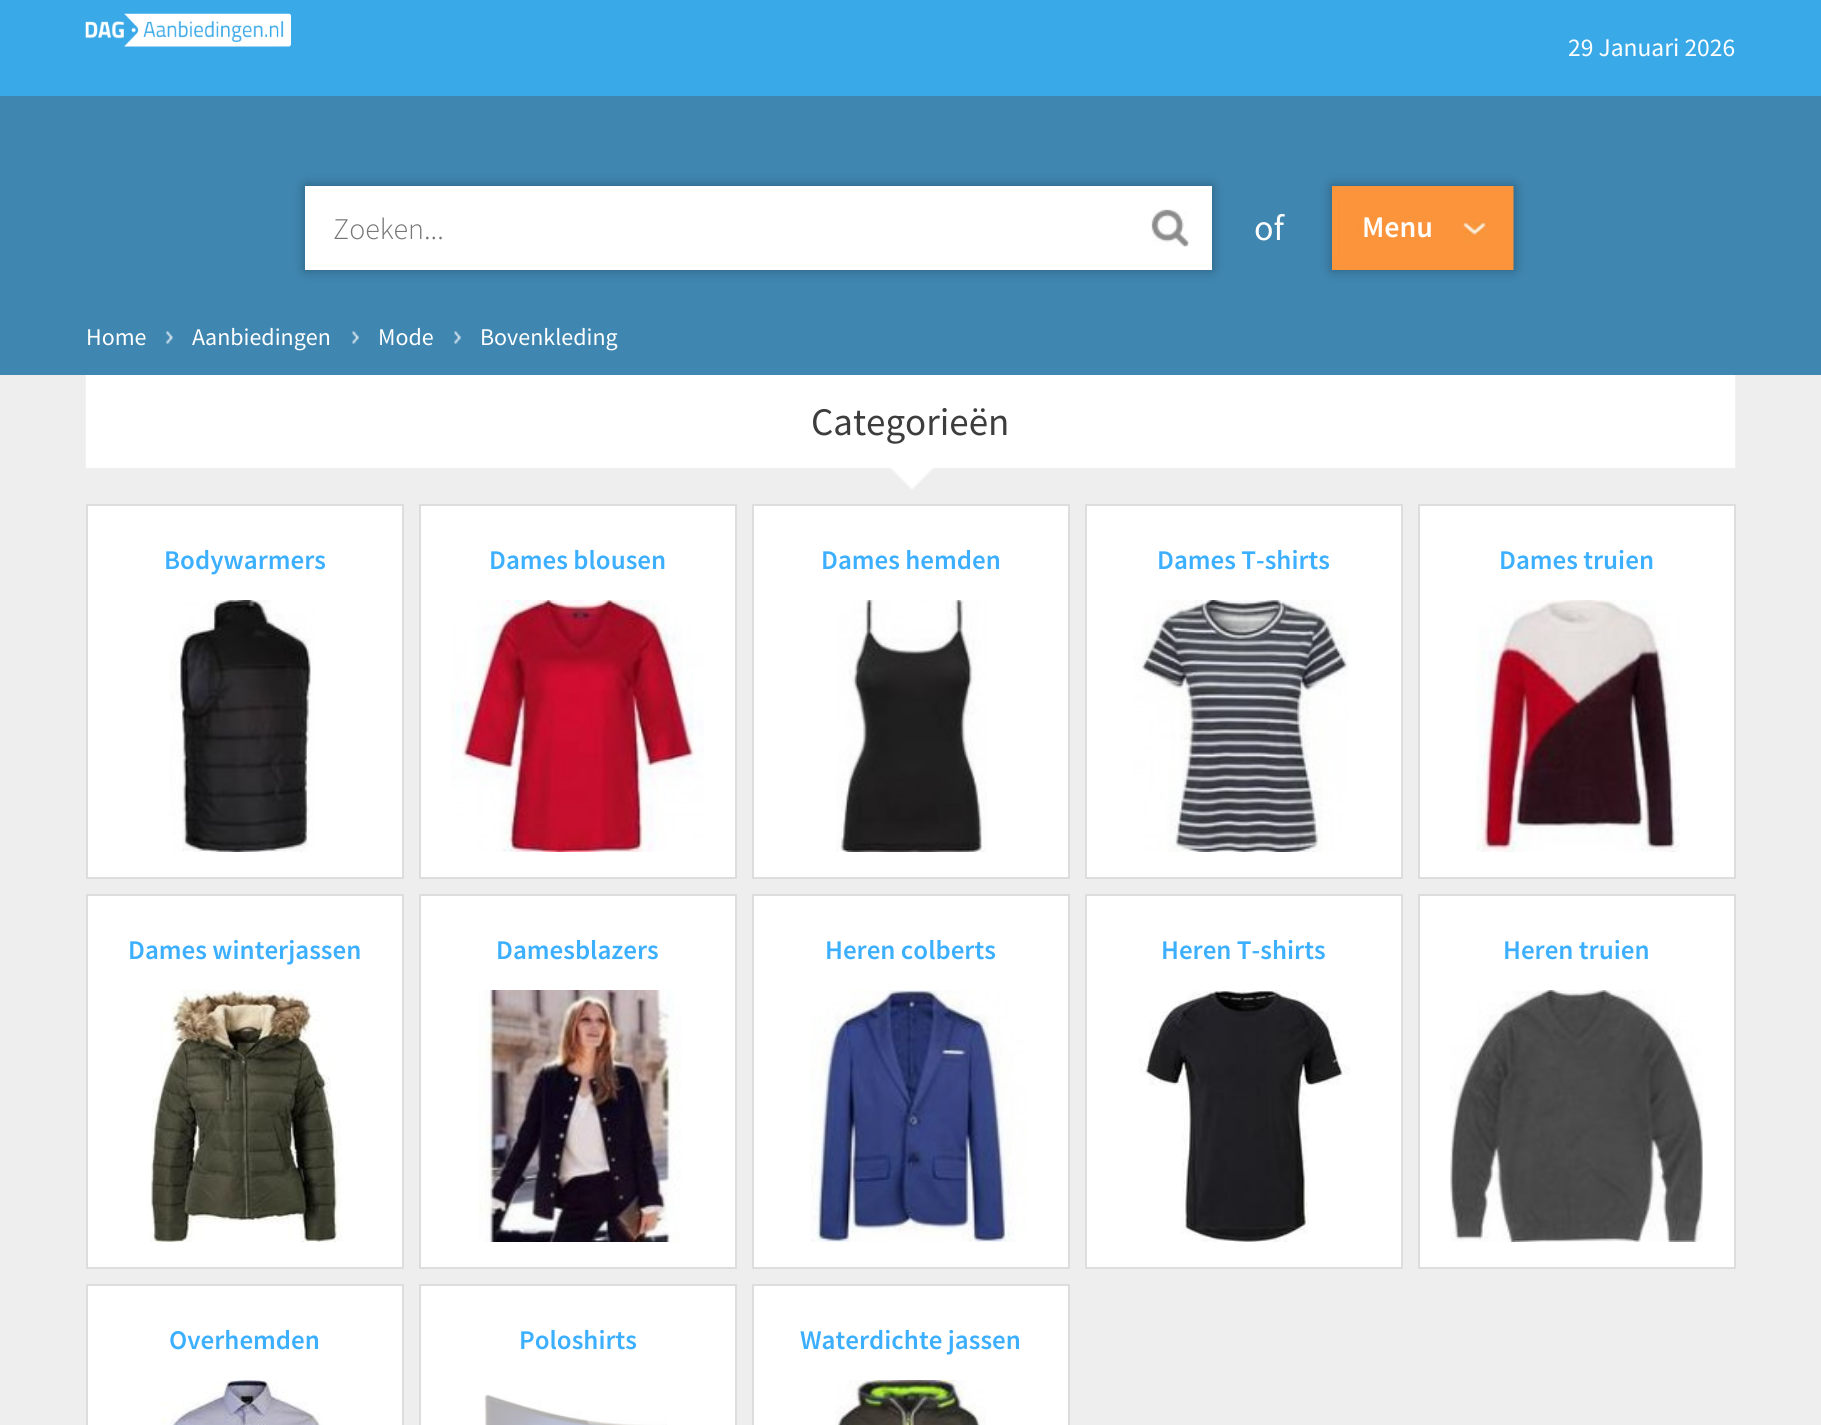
#include <cairo/cairo.h>
#include <math.h>
#include <stddef.h>


static void rounded_rect(cairo_t *cr, double x, double y, double w, double h, double r) {
  cairo_new_sub_path(cr);
  cairo_arc(cr, x + w - r, y + h - r, r, 0, M_PI / 2);
  cairo_arc(cr, x + r, y + h - r, r, M_PI / 2, M_PI);
  cairo_arc(cr, x + r, y + r, r, M_PI, 1.5 * M_PI);
  cairo_arc(cr, x + w - r, y + r, r, 1.5 * M_PI, 2 * M_PI);
  cairo_close_path(cr);
}

static void draw_shadow(cairo_t *cr, double x, double y, double w, double h, double r, double blur, double alpha) {
  cairo_push_group_with_content(cr, CAIRO_CONTENT_ALPHA);
  cairo_set_operator(cr, CAIRO_OPERATOR_SOURCE);
  for (int i = 15; i >= -15 && fmin(w, h) + blur * i / 3 > 0; i -= 2) {
    double e = blur * i / 6;
    cairo_set_source_rgba(cr, 0, 0, 0, alpha * erfc((i - 1) / 8.5) / 2);
    rounded_rect(cr, x - e, y - e, w + 2 * e, h + 2 * e, fmax(0, fmin(r + e + blur * .6, fmin(w, h) / 2 + e)));
    cairo_fill(cr);
  }
  cairo_pattern_t *soft = cairo_pop_group(cr);
  cairo_mask(cr, soft);
  cairo_pattern_destroy(soft);
}

static void draw_image(cairo_t *cr, const char *path, double x, double y, double w, double h) {
  cairo_surface_t *image = cairo_image_surface_create_from_png(path);
  cairo_save(cr);
  cairo_set_source_surface(cr, image, x, y);
  cairo_rectangle(cr, x, y, w, h);
  cairo_fill(cr);
  cairo_restore(cr);
  cairo_surface_destroy(image);
}

static void draw(cairo_t *cr) {
  cairo_set_source_rgb(cr, 238 / 255.0, 238 / 255.0, 238 / 255.0);
  cairo_paint(cr);
  cairo_set_source_rgb(cr, 58 / 255.0, 169 / 255.0, 232 / 255.0);
  cairo_rectangle(cr, 0, 0, 1821, 96);
  cairo_fill(cr);
  draw_image(cr, "images/1.png", 85, 13, 206, 34);
  cairo_set_source_rgb(cr, 63 / 255.0, 134 / 255.0, 176 / 255.0);
  cairo_rectangle(cr, 0, 96, 1821, 279);
  cairo_fill(cr);
  cairo_set_source_rgb(cr, 1 / 255.0, 1 / 255.0, 1 / 255.0);
  draw_shadow(cr, 305, 186, 907, 84, 0, 6, 0.3);
  cairo_set_source_rgb(cr, 1, 1, 1);
  cairo_rectangle(cr, 305, 186, 907, 84);
  cairo_fill(cr);
  draw_image(cr, "images/2.png", 1151, 209, 38, 38);
  cairo_set_source_rgb(cr, 1 / 255.0, 1 / 255.0, 1 / 255.0);
  draw_shadow(cr, 1332, 186, 182, 84, 0, 6, 0.3);
  draw_image(cr, "images/3.png", 1332, 186, 182, 84);
  draw_image(cr, "images/4.png", 166, 331, 7, 13);
  draw_image(cr, "images/5.png", 352, 331, 7, 13);
  draw_image(cr, "images/5.png", 454, 331, 7, 13);
  draw_image(cr, "images/6.png", 85, 375, 1651, 114);
  cairo_set_source_rgb(cr, 1, 1, 1);
  cairo_rectangle(cr, 87, 505, 316, 373);
  cairo_fill_preserve(cr);
  cairo_set_source_rgb(cr, 221 / 255.0, 221 / 255.0, 221 / 255.0);
  cairo_stroke(cr);
  draw_image(cr, "images/7.png", 169, 600, 146, 252);
  cairo_set_source_rgb(cr, 1, 1, 1);
  cairo_rectangle(cr, 420, 505, 316, 373);
  cairo_fill_preserve(cr);
  cairo_set_source_rgb(cr, 221 / 255.0, 221 / 255.0, 221 / 255.0);
  cairo_stroke(cr);
  draw_image(cr, "images/8.png", 451, 600, 253, 252);
  cairo_set_source_rgb(cr, 1, 1, 1);
  cairo_rectangle(cr, 753, 505, 316, 373);
  cairo_fill_preserve(cr);
  cairo_set_source_rgb(cr, 221 / 255.0, 221 / 255.0, 221 / 255.0);
  cairo_stroke(cr);
  draw_image(cr, "images/9.png", 836, 600, 151, 252);
  cairo_set_source_rgb(cr, 1, 1, 1);
  cairo_rectangle(cr, 1086, 505, 316, 373);
  cairo_fill_preserve(cr);
  cairo_set_source_rgb(cr, 221 / 255.0, 221 / 255.0, 221 / 255.0);
  cairo_stroke(cr);
  draw_image(cr, "images/10.png", 1133, 600, 216, 252);
  cairo_set_source_rgb(cr, 1, 1, 1);
  cairo_rectangle(cr, 1419, 505, 316, 373);
  cairo_fill_preserve(cr);
  cairo_set_source_rgb(cr, 221 / 255.0, 221 / 255.0, 221 / 255.0);
  cairo_stroke(cr);
  draw_image(cr, "images/11.png", 1476, 600, 204, 252);
  cairo_set_source_rgb(cr, 1, 1, 1);
  cairo_rectangle(cr, 87, 895, 316, 373);
  cairo_fill_preserve(cr);
  cairo_set_source_rgb(cr, 221 / 255.0, 221 / 255.0, 221 / 255.0);
  cairo_stroke(cr);
  draw_image(cr, "images/12.png", 150, 990, 192, 252);
  cairo_set_source_rgb(cr, 1, 1, 1);
  cairo_rectangle(cr, 420, 895, 316, 373);
  cairo_fill_preserve(cr);
  cairo_set_source_rgb(cr, 221 / 255.0, 221 / 255.0, 221 / 255.0);
  cairo_stroke(cr);
  draw_image(cr, "images/13.png", 478, 990, 203, 252);
  cairo_set_source_rgb(cr, 1, 1, 1);
  cairo_rectangle(cr, 753, 895, 316, 373);
  cairo_fill_preserve(cr);
  cairo_set_source_rgb(cr, 221 / 255.0, 221 / 255.0, 221 / 255.0);
  cairo_stroke(cr);
  draw_image(cr, "images/14.png", 810, 990, 216, 252);
  cairo_set_source_rgb(cr, 1, 1, 1);
  cairo_rectangle(cr, 1086, 895, 316, 373);
  cairo_fill_preserve(cr);
  cairo_set_source_rgb(cr, 221 / 255.0, 221 / 255.0, 221 / 255.0);
  cairo_stroke(cr);
  draw_image(cr, "images/15.png", 1139, 990, 212, 252);
  cairo_set_source_rgb(cr, 1, 1, 1);
  cairo_rectangle(cr, 1419, 895, 316, 373);
  cairo_fill_preserve(cr);
  cairo_set_source_rgb(cr, 221 / 255.0, 221 / 255.0, 221 / 255.0);
  cairo_stroke(cr);
  draw_image(cr, "images/16.png", 1450, 990, 253, 252);
  cairo_set_source_rgb(cr, 1, 1, 1);
  cairo_rectangle(cr, 87, 1285, 316, 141);
  cairo_fill_preserve(cr);
  cairo_set_source_rgb(cr, 221 / 255.0, 221 / 255.0, 221 / 255.0);
  cairo_stroke(cr);
  draw_image(cr, "images/17.png", 161, 1380, 162, 45);
  cairo_set_source_rgb(cr, 1, 1, 1);
  cairo_rectangle(cr, 420, 1285, 316, 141);
  cairo_fill_preserve(cr);
  cairo_set_source_rgb(cr, 221 / 255.0, 221 / 255.0, 221 / 255.0);
  cairo_stroke(cr);
  draw_image(cr, "images/18.png", 484, 1394, 183, 31);
  cairo_set_source_rgb(cr, 1, 1, 1);
  cairo_rectangle(cr, 753, 1285, 316, 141);
  cairo_fill_preserve(cr);
  cairo_set_source_rgb(cr, 221 / 255.0, 221 / 255.0, 221 / 255.0);
  cairo_stroke(cr);
  draw_image(cr, "images/19.png", 835, 1380, 151, 45);
  cairo_select_font_face(cr, "Source Sans Pro", CAIRO_FONT_SLANT_NORMAL, CAIRO_FONT_WEIGHT_NORMAL);
  cairo_set_font_size(cr, 25.5);
  cairo_set_source_rgb(cr, 1, 1, 1);
  cairo_move_to(cr, 1568, 56);
  cairo_show_text(cr, "29 Januari 2026");
  cairo_select_font_face(cr, "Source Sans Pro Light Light", CAIRO_FONT_SLANT_NORMAL, CAIRO_FONT_WEIGHT_NORMAL);
  cairo_set_font_size(cr, 30);
  cairo_set_source_rgb(cr, 117 / 255.0, 117 / 255.0, 117 / 255.0);
  cairo_move_to(cr, 333, 239);
  cairo_show_text(cr, "Zoeken...");
  cairo_select_font_face(cr, "Source Sans Pro", CAIRO_FONT_SLANT_NORMAL, CAIRO_FONT_WEIGHT_NORMAL);
  cairo_set_font_size(cr, 36);
  cairo_set_source_rgb(cr, 1, 1, 1);
  cairo_move_to(cr, 1254, 240);
  cairo_show_text(cr, "of");
  cairo_select_font_face(cr, "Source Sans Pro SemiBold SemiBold", CAIRO_FONT_SLANT_NORMAL, CAIRO_FONT_WEIGHT_NORMAL);
  cairo_set_font_size(cr, 30);
  cairo_move_to(cr, 1362, 237);
  cairo_show_text(cr, "Menu");
  cairo_select_font_face(cr, "Source Sans Pro", CAIRO_FONT_SLANT_NORMAL, CAIRO_FONT_WEIGHT_NORMAL);
  cairo_set_font_size(cr, 24);
  cairo_move_to(cr, 86, 345);
  cairo_show_text(cr, "Home");
  cairo_move_to(cr, 192, 345);
  cairo_show_text(cr, "Aanbiedingen");
  cairo_move_to(cr, 378, 345);
  cairo_show_text(cr, "Mode");
  cairo_move_to(cr, 480, 345);
  cairo_show_text(cr, "Bovenkleding");
  cairo_set_font_size(cr, 39);
  cairo_set_source_rgb(cr, 61 / 255.0, 61 / 255.0, 61 / 255.0);
  cairo_move_to(cr, 811, 435);
  cairo_show_text(cr, "Categorieën");
  cairo_select_font_face(cr, "Source Sans Pro SemiBold SemiBold", CAIRO_FONT_SLANT_NORMAL, CAIRO_FONT_WEIGHT_NORMAL);
  cairo_set_font_size(cr, 27);
  cairo_set_source_rgb(cr, 60 / 255.0, 175 / 255.0, 1);
  cairo_move_to(cr, 164, 569);
  cairo_show_text(cr, "Bodywarmers");
  cairo_move_to(cr, 489, 569);
  cairo_show_text(cr, "Dames blousen");
  cairo_move_to(cr, 821, 569);
  cairo_show_text(cr, "Dames hemden");
  cairo_move_to(cr, 1157, 569);
  cairo_show_text(cr, "Dames T-shirts");
  cairo_move_to(cr, 1499, 569);
  cairo_show_text(cr, "Dames truien");
  cairo_move_to(cr, 128, 959);
  cairo_show_text(cr, "Dames winterjassen");
  cairo_move_to(cr, 496, 959);
  cairo_show_text(cr, "Damesblazers");
  cairo_move_to(cr, 825, 959);
  cairo_show_text(cr, "Heren colberts");
  cairo_move_to(cr, 1161, 959);
  cairo_show_text(cr, "Heren T-shirts");
  cairo_move_to(cr, 1503, 959);
  cairo_show_text(cr, "Heren truien");
  cairo_move_to(cr, 169, 1349);
  cairo_show_text(cr, "Overhemden");
  cairo_move_to(cr, 519, 1349);
  cairo_show_text(cr, "Poloshirts");
  cairo_move_to(cr, 800, 1349);
  cairo_show_text(cr, "Waterdichte jassen");
}

int main(void) {
  cairo_surface_t *surface = cairo_image_surface_create(CAIRO_FORMAT_RGB24, 1821, 1425);
  cairo_t *cr = cairo_create(surface);
  cairo_font_options_t *options = cairo_font_options_create();
  cairo_font_options_set_hint_metrics(options, CAIRO_HINT_METRICS_OFF);
  cairo_font_options_set_hint_style(options, CAIRO_HINT_STYLE_NONE);
  cairo_set_font_options(cr, options);
  cairo_set_miter_limit(cr, 4);
  draw(cr);
  cairo_surface_write_to_png(surface, "out.png");
  cairo_font_options_destroy(options);
  cairo_destroy(cr);
  cairo_surface_destroy(surface);
  return 0;
}
